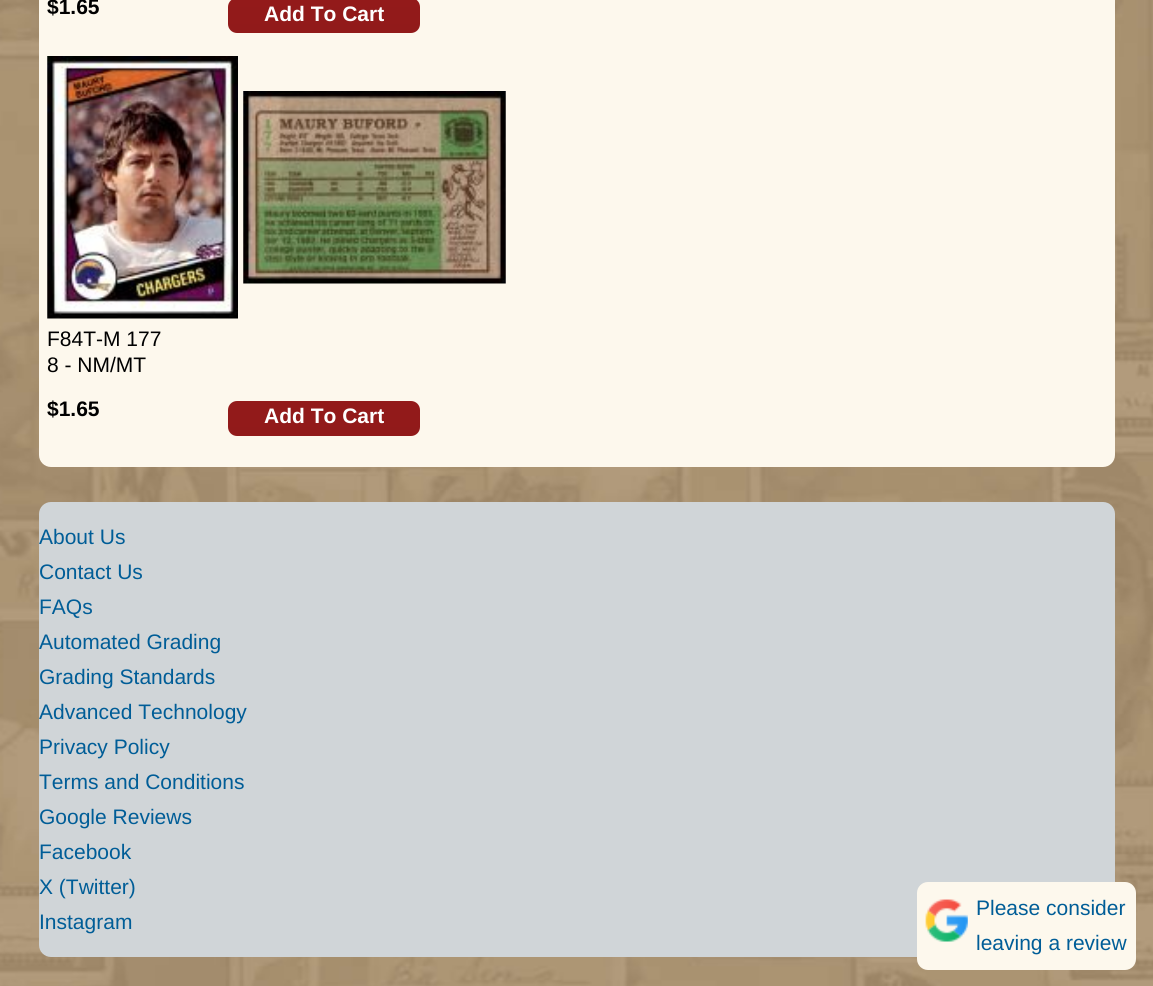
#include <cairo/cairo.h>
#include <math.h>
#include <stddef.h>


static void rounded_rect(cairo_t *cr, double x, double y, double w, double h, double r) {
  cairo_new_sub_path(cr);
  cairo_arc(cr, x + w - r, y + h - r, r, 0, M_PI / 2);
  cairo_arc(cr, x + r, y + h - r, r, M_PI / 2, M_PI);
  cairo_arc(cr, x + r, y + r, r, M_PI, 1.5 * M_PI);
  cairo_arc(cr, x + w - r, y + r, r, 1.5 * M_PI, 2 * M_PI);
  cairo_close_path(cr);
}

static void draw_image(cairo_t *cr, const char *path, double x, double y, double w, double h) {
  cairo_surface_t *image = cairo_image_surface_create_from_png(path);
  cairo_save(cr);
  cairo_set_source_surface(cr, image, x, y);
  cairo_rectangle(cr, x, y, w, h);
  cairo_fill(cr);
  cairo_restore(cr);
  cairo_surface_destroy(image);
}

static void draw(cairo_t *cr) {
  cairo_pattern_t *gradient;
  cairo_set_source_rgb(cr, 1, 1, 1);
  cairo_paint(cr);
  draw_image(cr, "images/1.png", 0, 0, 1153, 986);
  cairo_set_source_rgb(cr, 253 / 255.0, 248 / 255.0, 237 / 255.0);
  rounded_rect(cr, 39, -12, 1076, 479, 12);
  cairo_fill(cr);
  gradient = cairo_pattern_create_linear(324, -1.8, 324, 33);
  cairo_pattern_add_color_stop_rgba(gradient, 0, 147 / 255.0, 26 / 255.0, 26 / 255.0, 1);
  cairo_pattern_add_color_stop_rgba(gradient, 1, 145 / 255.0, 26 / 255.0, 26 / 255.0, 1);
  cairo_set_source(cr, gradient);
  cairo_pattern_destroy(gradient);
  rounded_rect(cr, 228, -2, 192, 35, 9);
  cairo_fill(cr);
  draw_image(cr, "images/2.png", 47, 56, 191, 263);
  draw_image(cr, "images/3.png", 243, 91, 263, 193);
  gradient = cairo_pattern_create_linear(324, 401, 324, 436);
  cairo_pattern_add_color_stop_rgba(gradient, 0, 147 / 255.0, 26 / 255.0, 26 / 255.0, 1);
  cairo_pattern_add_color_stop_rgba(gradient, 1, 145 / 255.0, 26 / 255.0, 26 / 255.0, 1);
  cairo_set_source(cr, gradient);
  cairo_pattern_destroy(gradient);
  rounded_rect(cr, 228, 401, 192, 35, 9);
  cairo_fill(cr);
  cairo_set_source_rgb(cr, 208 / 255.0, 213 / 255.0, 216 / 255.0);
  rounded_rect(cr, 39, 502, 1076, 455, 12);
  cairo_fill(cr);
  cairo_set_source_rgb(cr, 253 / 255.0, 248 / 255.0, 237 / 255.0);
  rounded_rect(cr, 917, 882, 219, 88, 11);
  cairo_fill(cr);
  draw_image(cr, "images/4.png", 925, 899, 43, 43);
  cairo_select_font_face(cr, "Liberation Sans", CAIRO_FONT_SLANT_NORMAL, CAIRO_FONT_WEIGHT_BOLD);
  cairo_set_font_size(cr, 21);
  cairo_set_source_rgb(cr, 0, 0, 0);
  cairo_move_to(cr, 47, 14);
  cairo_show_text(cr, "$1.65");
  cairo_set_source_rgb(cr, 1, 1, 1);
  cairo_move_to(cr, 264, 21);
  cairo_show_text(cr, "Add To Cart");
  cairo_select_font_face(cr, "Liberation Sans", CAIRO_FONT_SLANT_NORMAL, CAIRO_FONT_WEIGHT_NORMAL);
  cairo_set_source_rgb(cr, 0, 0, 0);
  cairo_move_to(cr, 47, 346);
  cairo_show_text(cr, "F84T-M 177");
  cairo_move_to(cr, 47, 372);
  cairo_show_text(cr, "8 - NM/MT");
  cairo_select_font_face(cr, "Liberation Sans", CAIRO_FONT_SLANT_NORMAL, CAIRO_FONT_WEIGHT_BOLD);
  cairo_move_to(cr, 47, 416);
  cairo_show_text(cr, "$1.65");
  cairo_set_source_rgb(cr, 1, 1, 1);
  cairo_move_to(cr, 264, 423);
  cairo_show_text(cr, "Add To Cart");
  cairo_select_font_face(cr, "Liberation Sans", CAIRO_FONT_SLANT_NORMAL, CAIRO_FONT_WEIGHT_NORMAL);
  cairo_set_source_rgb(cr, 0, 93 / 255.0, 151 / 255.0);
  cairo_move_to(cr, 39, 544);
  cairo_show_text(cr, "About Us");
  cairo_move_to(cr, 39, 579);
  cairo_show_text(cr, "Contact Us");
  cairo_move_to(cr, 39, 614);
  cairo_show_text(cr, "FAQs");
  cairo_move_to(cr, 39, 649);
  cairo_show_text(cr, "Automated Grading");
  cairo_move_to(cr, 39, 684);
  cairo_show_text(cr, "Grading Standards");
  cairo_move_to(cr, 39, 719);
  cairo_show_text(cr, "Advanced Technology");
  cairo_move_to(cr, 39, 754);
  cairo_show_text(cr, "Privacy Policy");
  cairo_move_to(cr, 39, 789);
  cairo_show_text(cr, "Terms and Conditions");
  cairo_move_to(cr, 39, 824);
  cairo_show_text(cr, "Google Reviews");
  cairo_move_to(cr, 39, 859);
  cairo_show_text(cr, "Facebook");
  cairo_move_to(cr, 39, 894);
  cairo_show_text(cr, "X (Twitter)");
  cairo_move_to(cr, 39, 929);
  cairo_show_text(cr, "Instagram");
  cairo_move_to(cr, 976, 915);
  cairo_show_text(cr, "Please consider");
  cairo_move_to(cr, 976, 950);
  cairo_show_text(cr, "leaving a review");
}

int main(void) {
  cairo_surface_t *surface = cairo_image_surface_create(CAIRO_FORMAT_RGB24, 1153, 986);
  cairo_t *cr = cairo_create(surface);
  cairo_font_options_t *options = cairo_font_options_create();
  cairo_font_options_set_hint_metrics(options, CAIRO_HINT_METRICS_OFF);
  cairo_font_options_set_hint_style(options, CAIRO_HINT_STYLE_NONE);
  cairo_set_font_options(cr, options);
  cairo_set_miter_limit(cr, 4);
  draw(cr);
  cairo_surface_write_to_png(surface, "out.png");
  cairo_font_options_destroy(options);
  cairo_destroy(cr);
  cairo_surface_destroy(surface);
  return 0;
}
